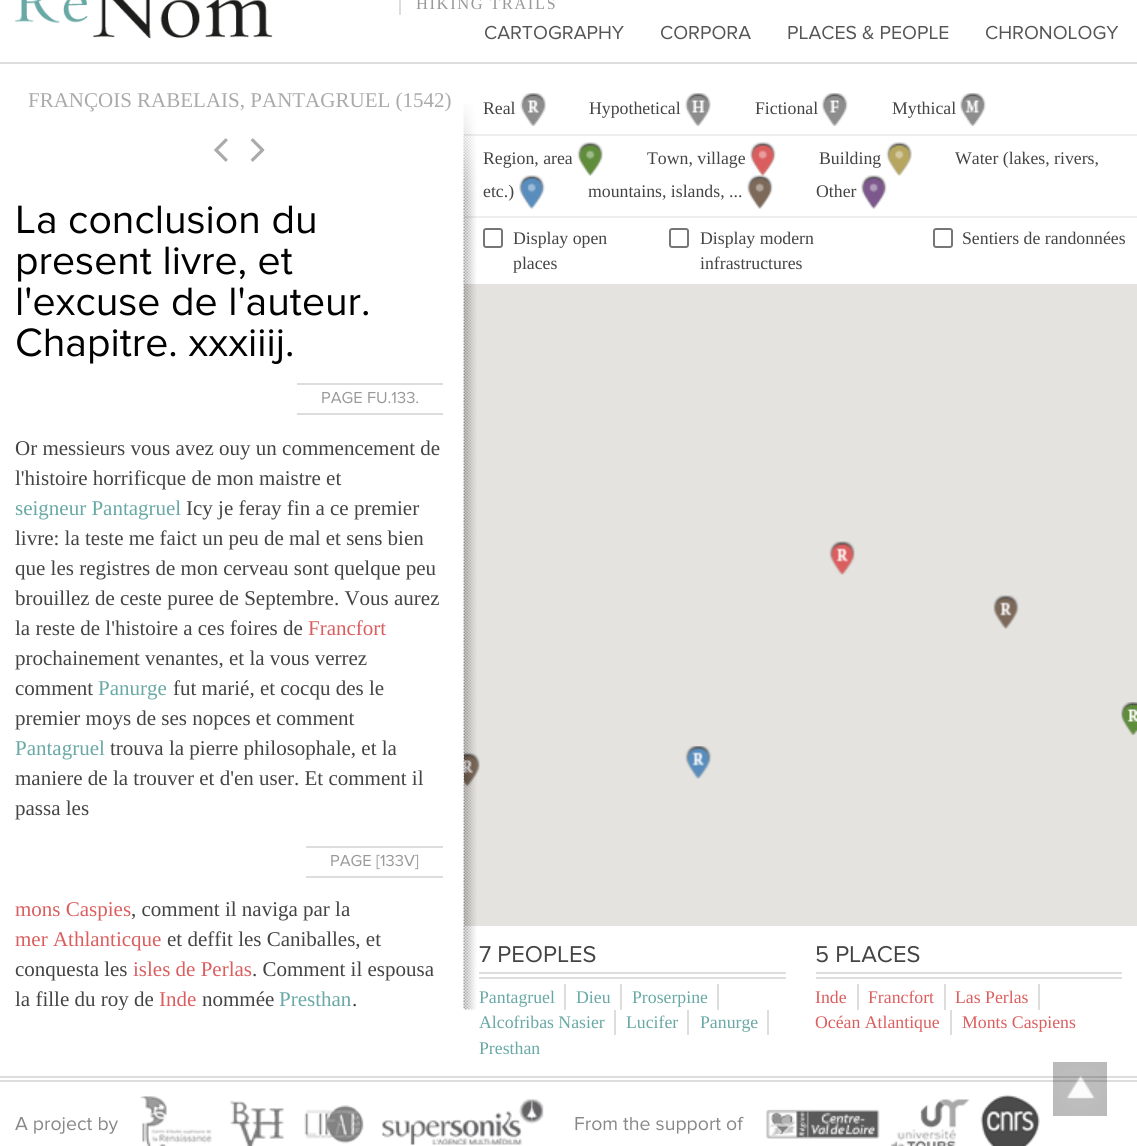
#include <cairo/cairo.h>
#include <math.h>
#include <stddef.h>


static void draw_spaced(cairo_t *cr, double x, double y, const char *s, double letter, double word) {
  cairo_move_to(cr, x, y);
  while (*s) {
    char ch[5] = {0};
    int n = 0;
    do ch[n++] = *s++; while ((*s & 0xC0) == 0x80);
    cairo_show_text(cr, ch);
    cairo_rel_move_to(cr, letter + word * (*ch == ' '), 0);
  }
}

static void rounded_rect(cairo_t *cr, double x, double y, double w, double h, double r) {
  cairo_new_sub_path(cr);
  cairo_arc(cr, x + w - r, y + h - r, r, 0, M_PI / 2);
  cairo_arc(cr, x + r, y + h - r, r, M_PI / 2, M_PI);
  cairo_arc(cr, x + r, y + r, r, M_PI, 1.5 * M_PI);
  cairo_arc(cr, x + w - r, y + r, r, 1.5 * M_PI, 2 * M_PI);
  cairo_close_path(cr);
}

static void draw_image(cairo_t *cr, const char *path, double x, double y, double w, double h) {
  cairo_surface_t *image = cairo_image_surface_create_from_png(path);
  cairo_save(cr);
  cairo_set_source_surface(cr, image, x, y);
  cairo_rectangle(cr, x, y, w, h);
  cairo_fill(cr);
  cairo_restore(cr);
  cairo_surface_destroy(image);
}

static void draw(cairo_t *cr) {
  cairo_set_source_rgb(cr, 1, 1, 1);
  cairo_paint(cr);
  cairo_set_source_rgb(cr, 221 / 255.0, 221 / 255.0, 221 / 255.0);
  cairo_rectangle(cr, 0, 62, 1137, 2);
  cairo_fill(cr);
  draw_image(cr, "images/1.png", 15, 0, 258, 38);
  cairo_rectangle(cr, 399, 0, 2, 15);
  cairo_fill(cr);
  draw_image(cr, "images/2.png", 214, 138, 14, 24);
  draw_image(cr, "images/3.png", 250, 138, 15, 24);
  cairo_rectangle(cr, 297, 383, 146, 2);
  cairo_fill(cr);
  cairo_rectangle(cr, 297, 413, 146, 2);
  cairo_fill(cr);
  cairo_rectangle(cr, 306, 846, 137, 2);
  cairo_fill(cr);
  cairo_rectangle(cr, 306, 876, 137, 2);
  cairo_fill(cr);
  cairo_set_source_rgb(cr, 238 / 255.0, 238 / 255.0, 238 / 255.0);
  cairo_rectangle(cr, 464, 134, 673, 2);
  cairo_fill(cr);
  cairo_rectangle(cr, 464, 216, 673, 2);
  cairo_fill(cr);
  cairo_set_source_rgb(cr, 229 / 255.0, 227 / 255.0, 223 / 255.0);
  cairo_rectangle(cr, 464, 284, 673, 642);
  cairo_fill(cr);
  draw_image(cr, "images/18.png", 464, 752, 16, 35);
  draw_image(cr, "images/4.png", 463, 104, 14, 906);
  draw_image(cr, "images/5.png", 520, 93, 26, 33);
  draw_image(cr, "images/6.png", 685, 93, 26, 33);
  draw_image(cr, "images/7.png", 822, 93, 26, 33);
  draw_image(cr, "images/8.png", 960, 93, 26, 33);
  draw_image(cr, "images/9.png", 577, 142, 26, 34);
  draw_image(cr, "images/10.png", 750, 142, 26, 34);
  draw_image(cr, "images/11.png", 886, 142, 26, 34);
  draw_image(cr, "images/12.png", 519, 175, 26, 34);
  draw_image(cr, "images/13.png", 747, 175, 26, 34);
  draw_image(cr, "images/14.png", 861, 175, 26, 34);
  rounded_rect(cr, 484, 229, 18, 18, 2);
  cairo_set_source_rgb(cr, 118 / 255.0, 118 / 255.0, 118 / 255.0);
  cairo_stroke(cr);
  rounded_rect(cr, 670, 229, 18, 18, 2);
  cairo_stroke(cr);
  rounded_rect(cr, 934, 229, 18, 18, 2);
  cairo_stroke(cr);
  draw_image(cr, "images/15.png", 829, 541, 26, 34);
  draw_image(cr, "images/16.png", 993, 595, 26, 34);
  draw_image(cr, "images/17.png", 1121, 702, 16, 33);
  draw_image(cr, "images/19.png", 685, 746, 27, 33);
  cairo_set_source_rgb(cr, 221 / 255.0, 221 / 255.0, 221 / 255.0);
  cairo_rectangle(cr, 479, 972, 307, 2);
  cairo_fill(cr);
  cairo_rectangle(cr, 479, 977, 307, 2);
  cairo_fill(cr);
  cairo_rectangle(cr, 564, 984, 2, 26);
  cairo_fill(cr);
  cairo_rectangle(cr, 620, 984, 2, 26);
  cairo_fill(cr);
  cairo_rectangle(cr, 717, 984, 2, 26);
  cairo_fill(cr);
  cairo_rectangle(cr, 614, 1010, 2, 25);
  cairo_fill(cr);
  cairo_rectangle(cr, 687, 1010, 2, 25);
  cairo_fill(cr);
  cairo_rectangle(cr, 767, 1010, 2, 25);
  cairo_fill(cr);
  cairo_rectangle(cr, 816, 972, 306, 2);
  cairo_fill(cr);
  cairo_rectangle(cr, 816, 977, 306, 2);
  cairo_fill(cr);
  cairo_rectangle(cr, 857, 984, 2, 26);
  cairo_fill(cr);
  cairo_rectangle(cr, 944, 984, 2, 26);
  cairo_fill(cr);
  cairo_rectangle(cr, 1038, 984, 2, 26);
  cairo_fill(cr);
  cairo_rectangle(cr, 950, 1010, 2, 25);
  cairo_fill(cr);
  cairo_rectangle(cr, 0, 1076, 1137, 2);
  cairo_fill(cr);
  cairo_rectangle(cr, 0, 1080, 1137, 2);
  cairo_fill(cr);
  draw_image(cr, "images/20.png", 140, 1096, 72, 50);
  draw_image(cr, "images/21.png", 229, 1100, 55, 46);
  draw_image(cr, "images/22.png", 304, 1105, 60, 39);
  draw_image(cr, "images/23.png", 382, 1099, 162, 46);
  draw_image(cr, "images/24.png", 766, 1109, 114, 30);
  draw_image(cr, "images/25.png", 890, 1099, 80, 47);
  draw_image(cr, "images/26.png", 980, 1094, 60, 52);
  draw_image(cr, "images/27.png", 1053, 1062, 54, 54);
  cairo_select_font_face(cr, "Liberation Serif", CAIRO_FONT_SLANT_NORMAL, CAIRO_FONT_WEIGHT_NORMAL);
  cairo_set_font_size(cr, 16.5);
  cairo_set_source_rgb(cr, 153 / 255.0, 153 / 255.0, 153 / 255.0);
  draw_spaced(cr, 416, 9, "HIKING TRAILS", 1.6, 0);
  cairo_select_font_face(cr, "Proxima Nova", CAIRO_FONT_SLANT_NORMAL, CAIRO_FONT_WEIGHT_NORMAL);
  cairo_set_font_size(cr, 19.5);
  cairo_set_source_rgb(cr, 85 / 255.0, 85 / 255.0, 85 / 255.0);
  cairo_move_to(cr, 484, 39);
  cairo_show_text(cr, "CARTOGRAPHY");
  cairo_move_to(cr, 660, 39);
  cairo_show_text(cr, "CORPORA");
  cairo_move_to(cr, 787, 39);
  cairo_show_text(cr, "PLACES & PEOPLE");
  cairo_move_to(cr, 985, 39);
  cairo_show_text(cr, "CHRONOLOGY");
  cairo_select_font_face(cr, "Liberation Serif", CAIRO_FONT_SLANT_NORMAL, CAIRO_FONT_WEIGHT_NORMAL);
  cairo_set_font_size(cr, 21);
  cairo_set_source_rgb(cr, 170 / 255.0, 170 / 255.0, 170 / 255.0);
  cairo_move_to(cr, 28, 107);
  cairo_show_text(cr, "FRANÇOIS RABELAIS, PANTAGRUEL (1542)");
  cairo_select_font_face(cr, "Proxima Nova", CAIRO_FONT_SLANT_NORMAL, CAIRO_FONT_WEIGHT_NORMAL);
  cairo_set_font_size(cr, 41);
  cairo_set_source_rgb(cr, 0, 0, 0);
  cairo_move_to(cr, 15, 233);
  cairo_show_text(cr, "La conclusion du");
  cairo_move_to(cr, 15, 274);
  cairo_show_text(cr, "present livre, et");
  cairo_move_to(cr, 15, 315);
  cairo_show_text(cr, "l'excuse de l'auteur.");
  cairo_move_to(cr, 15, 356);
  cairo_show_text(cr, "Chapitre. xxxiiij.");
  cairo_set_font_size(cr, 16.5);
  cairo_set_source_rgb(cr, 153 / 255.0, 153 / 255.0, 153 / 255.0);
  cairo_move_to(cr, 321, 403);
  cairo_show_text(cr, "PAGE FU.133.");
  cairo_select_font_face(cr, "Liberation Serif", CAIRO_FONT_SLANT_NORMAL, CAIRO_FONT_WEIGHT_NORMAL);
  cairo_set_font_size(cr, 21);
  cairo_set_source_rgb(cr, 68 / 255.0, 68 / 255.0, 68 / 255.0);
  cairo_move_to(cr, 15, 455);
  cairo_show_text(cr, "Or messieurs vous avez ouy un commencement de");
  cairo_move_to(cr, 15, 485);
  cairo_show_text(cr, "l'histoire horrificque de mon maistre et");
  cairo_set_source_rgb(cr, 104 / 255.0, 168 / 255.0, 165 / 255.0);
  cairo_move_to(cr, 15, 515);
  cairo_show_text(cr, "seigneur Pantagruel");
  cairo_set_source_rgb(cr, 68 / 255.0, 68 / 255.0, 68 / 255.0);
  cairo_move_to(cr, 186, 515);
  cairo_show_text(cr, "Icy je feray fin a ce premier");
  cairo_move_to(cr, 15, 545);
  cairo_show_text(cr, "livre: la teste me faict un peu de mal et sens bien");
  cairo_move_to(cr, 15, 575);
  cairo_show_text(cr, "que les registres de mon cerveau sont quelque peu");
  cairo_move_to(cr, 15, 605);
  cairo_show_text(cr, "brouillez de ceste puree de Septembre. Vous aurez");
  cairo_move_to(cr, 15, 635);
  cairo_show_text(cr, "la reste de l'histoire a ces foires de");
  cairo_set_source_rgb(cr, 219 / 255.0, 94 / 255.0, 95 / 255.0);
  cairo_move_to(cr, 308, 635);
  cairo_show_text(cr, "Francfort");
  cairo_set_source_rgb(cr, 68 / 255.0, 68 / 255.0, 68 / 255.0);
  cairo_move_to(cr, 15, 665);
  cairo_show_text(cr, "prochainement venantes, et la vous verrez");
  cairo_move_to(cr, 15, 695);
  cairo_show_text(cr, "comment");
  cairo_set_source_rgb(cr, 104 / 255.0, 168 / 255.0, 165 / 255.0);
  cairo_move_to(cr, 98, 695);
  cairo_show_text(cr, "Panurge");
  cairo_set_source_rgb(cr, 68 / 255.0, 68 / 255.0, 68 / 255.0);
  cairo_move_to(cr, 173, 695);
  cairo_show_text(cr, "fut marié, et cocqu des le");
  cairo_move_to(cr, 15, 725);
  cairo_show_text(cr, "premier moys de ses nopces et comment");
  cairo_set_source_rgb(cr, 104 / 255.0, 168 / 255.0, 165 / 255.0);
  cairo_move_to(cr, 15, 755);
  cairo_show_text(cr, "Pantagruel");
  cairo_set_source_rgb(cr, 68 / 255.0, 68 / 255.0, 68 / 255.0);
  cairo_move_to(cr, 110, 755);
  cairo_show_text(cr, "trouva la pierre philosophale, et la");
  cairo_move_to(cr, 15, 785);
  cairo_show_text(cr, "maniere de la trouver et d'en user. Et comment il");
  cairo_move_to(cr, 15, 815);
  cairo_show_text(cr, "passa les");
  cairo_select_font_face(cr, "Proxima Nova", CAIRO_FONT_SLANT_NORMAL, CAIRO_FONT_WEIGHT_NORMAL);
  cairo_set_font_size(cr, 16.5);
  cairo_set_source_rgb(cr, 153 / 255.0, 153 / 255.0, 153 / 255.0);
  cairo_move_to(cr, 330, 866);
  cairo_show_text(cr, "PAGE [133V]");
  cairo_select_font_face(cr, "Liberation Serif", CAIRO_FONT_SLANT_NORMAL, CAIRO_FONT_WEIGHT_NORMAL);
  cairo_set_font_size(cr, 21);
  cairo_set_source_rgb(cr, 219 / 255.0, 94 / 255.0, 95 / 255.0);
  cairo_move_to(cr, 15, 916);
  cairo_show_text(cr, "mons Caspies");
  cairo_set_source_rgb(cr, 68 / 255.0, 68 / 255.0, 68 / 255.0);
  cairo_move_to(cr, 131, 916);
  cairo_show_text(cr, ", comment il naviga par la");
  cairo_set_source_rgb(cr, 219 / 255.0, 94 / 255.0, 95 / 255.0);
  cairo_move_to(cr, 15, 946);
  cairo_show_text(cr, "mer Athlanticque");
  cairo_set_source_rgb(cr, 68 / 255.0, 68 / 255.0, 68 / 255.0);
  cairo_move_to(cr, 167, 946);
  cairo_show_text(cr, "et deffit les Caniballes, et");
  cairo_move_to(cr, 15, 976);
  cairo_show_text(cr, "conquesta les");
  cairo_set_source_rgb(cr, 219 / 255.0, 94 / 255.0, 95 / 255.0);
  cairo_move_to(cr, 133, 976);
  cairo_show_text(cr, "isles de Perlas");
  cairo_set_source_rgb(cr, 68 / 255.0, 68 / 255.0, 68 / 255.0);
  cairo_move_to(cr, 252, 976);
  cairo_show_text(cr, ". Comment il espousa");
  cairo_save(cr);
  cairo_rectangle(cr, 15, 185, 449, 825);
  cairo_clip(cr);
  cairo_move_to(cr, 15, 1006);
  cairo_show_text(cr, "la fille du roy de");
  cairo_restore(cr);
  cairo_set_source_rgb(cr, 219 / 255.0, 94 / 255.0, 95 / 255.0);
  cairo_move_to(cr, 159, 1006);
  cairo_show_text(cr, "Inde");
  cairo_set_source_rgb(cr, 68 / 255.0, 68 / 255.0, 68 / 255.0);
  cairo_move_to(cr, 202, 1006);
  cairo_show_text(cr, "nommée");
  cairo_set_source_rgb(cr, 104 / 255.0, 168 / 255.0, 165 / 255.0);
  cairo_move_to(cr, 279, 1006);
  cairo_show_text(cr, "Presthan");
  cairo_set_source_rgb(cr, 68 / 255.0, 68 / 255.0, 68 / 255.0);
  cairo_move_to(cr, 352, 1006);
  cairo_show_text(cr, ".");
  cairo_set_font_size(cr, 17.75);
  cairo_move_to(cr, 483, 114);
  cairo_show_text(cr, "Real");
  cairo_move_to(cr, 589, 114);
  cairo_show_text(cr, "Hypothetical");
  cairo_move_to(cr, 755, 114);
  cairo_show_text(cr, "Fictional");
  cairo_move_to(cr, 892, 114);
  cairo_show_text(cr, "Mythical");
  cairo_move_to(cr, 483, 164);
  cairo_show_text(cr, "Region, area");
  cairo_move_to(cr, 647, 164);
  cairo_show_text(cr, "Town, village");
  cairo_move_to(cr, 819, 164);
  cairo_show_text(cr, "Building");
  cairo_move_to(cr, 955, 164);
  cairo_show_text(cr, "Water (lakes, rivers,");
  cairo_move_to(cr, 483, 197);
  cairo_show_text(cr, "etc.)");
  cairo_move_to(cr, 588, 197);
  cairo_show_text(cr, "mountains, islands, ...");
  cairo_move_to(cr, 816, 197);
  cairo_show_text(cr, "Other");
  cairo_move_to(cr, 513, 244);
  cairo_show_text(cr, "Display open");
  cairo_move_to(cr, 513, 269);
  cairo_show_text(cr, "places");
  cairo_move_to(cr, 700, 244);
  cairo_show_text(cr, "Display modern");
  cairo_move_to(cr, 700, 269);
  cairo_show_text(cr, "infrastructures");
  cairo_move_to(cr, 962, 244);
  cairo_show_text(cr, "Sentiers de randonnées");
  cairo_select_font_face(cr, "Proxima Nova", CAIRO_FONT_SLANT_NORMAL, CAIRO_FONT_WEIGHT_NORMAL);
  cairo_set_font_size(cr, 23.75);
  cairo_move_to(cr, 479, 962);
  cairo_show_text(cr, "7 PEOPLES");
  cairo_select_font_face(cr, "Liberation Serif", CAIRO_FONT_SLANT_NORMAL, CAIRO_FONT_WEIGHT_NORMAL);
  cairo_set_font_size(cr, 17.75);
  cairo_set_source_rgb(cr, 104 / 255.0, 168 / 255.0, 165 / 255.0);
  cairo_move_to(cr, 479, 1003);
  cairo_show_text(cr, "Pantagruel");
  cairo_move_to(cr, 576, 1003);
  cairo_show_text(cr, "Dieu");
  cairo_move_to(cr, 632, 1003);
  cairo_show_text(cr, "Proserpine");
  cairo_move_to(cr, 479, 1028);
  cairo_show_text(cr, "Alcofribas Nasier");
  cairo_move_to(cr, 626, 1028);
  cairo_show_text(cr, "Lucifer");
  cairo_move_to(cr, 700, 1028);
  cairo_show_text(cr, "Panurge");
  cairo_move_to(cr, 479, 1054);
  cairo_show_text(cr, "Presthan");
  cairo_select_font_face(cr, "Proxima Nova", CAIRO_FONT_SLANT_NORMAL, CAIRO_FONT_WEIGHT_NORMAL);
  cairo_set_font_size(cr, 23.75);
  cairo_set_source_rgb(cr, 68 / 255.0, 68 / 255.0, 68 / 255.0);
  cairo_move_to(cr, 815, 962);
  cairo_show_text(cr, "5 PLACES");
  cairo_select_font_face(cr, "Liberation Serif", CAIRO_FONT_SLANT_NORMAL, CAIRO_FONT_WEIGHT_NORMAL);
  cairo_set_font_size(cr, 17.75);
  cairo_set_source_rgb(cr, 219 / 255.0, 94 / 255.0, 95 / 255.0);
  cairo_move_to(cr, 815, 1003);
  cairo_show_text(cr, "Inde");
  cairo_move_to(cr, 868, 1003);
  cairo_show_text(cr, "Francfort");
  cairo_move_to(cr, 955, 1003);
  cairo_show_text(cr, "Las Perlas");
  cairo_move_to(cr, 815, 1028);
  cairo_show_text(cr, "Océan Atlantique");
  cairo_move_to(cr, 962, 1028);
  cairo_show_text(cr, "Monts Caspiens");
  cairo_select_font_face(cr, "Proxima Nova", CAIRO_FONT_SLANT_NORMAL, CAIRO_FONT_WEIGHT_NORMAL);
  cairo_set_font_size(cr, 19.5);
  cairo_set_source_rgb(cr, 136 / 255.0, 136 / 255.0, 136 / 255.0);
  cairo_move_to(cr, 15, 1130);
  cairo_show_text(cr, "A project by");
  cairo_move_to(cr, 574, 1130);
  cairo_show_text(cr, "From the support of");
}

int main(void) {
  cairo_surface_t *surface = cairo_image_surface_create(CAIRO_FORMAT_RGB24, 1137, 1146);
  cairo_t *cr = cairo_create(surface);
  cairo_font_options_t *options = cairo_font_options_create();
  cairo_font_options_set_hint_metrics(options, CAIRO_HINT_METRICS_OFF);
  cairo_font_options_set_hint_style(options, CAIRO_HINT_STYLE_NONE);
  cairo_set_font_options(cr, options);
  cairo_set_miter_limit(cr, 4);
  draw(cr);
  cairo_surface_write_to_png(surface, "out.png");
  cairo_font_options_destroy(options);
  cairo_destroy(cr);
  cairo_surface_destroy(surface);
  return 0;
}
